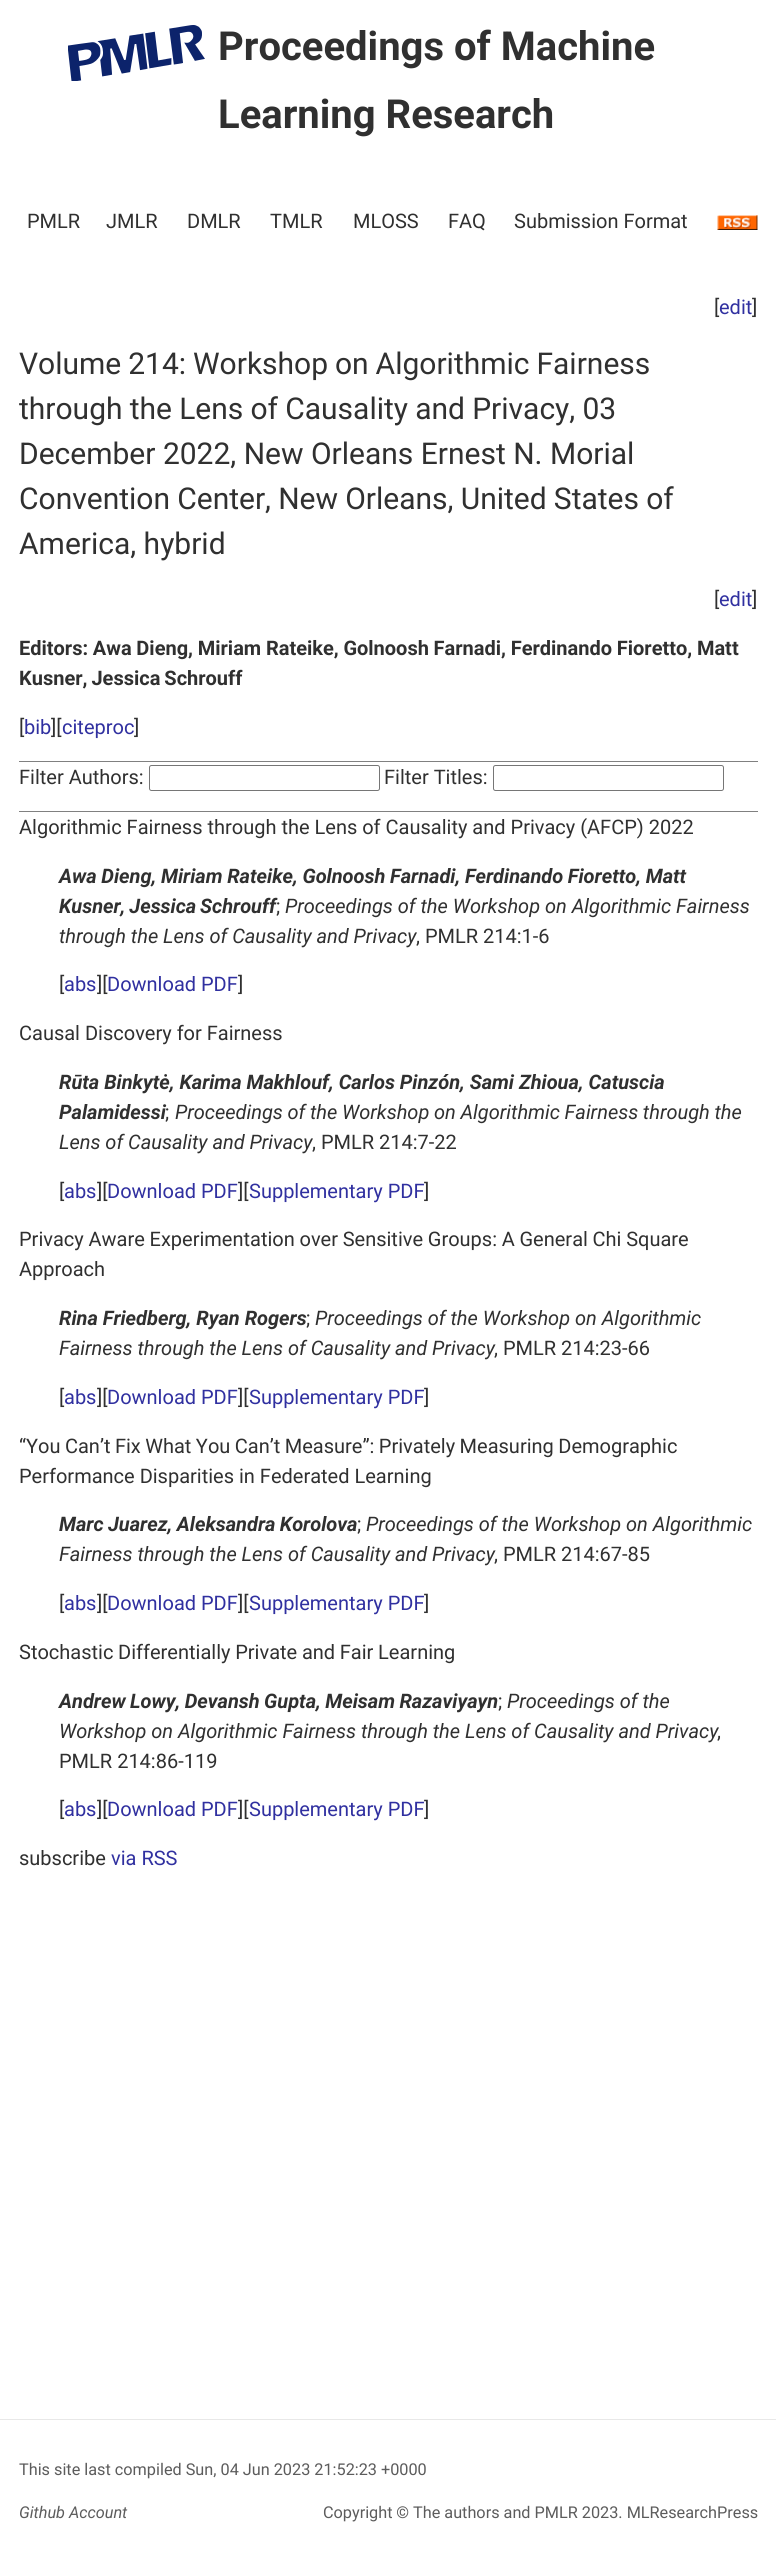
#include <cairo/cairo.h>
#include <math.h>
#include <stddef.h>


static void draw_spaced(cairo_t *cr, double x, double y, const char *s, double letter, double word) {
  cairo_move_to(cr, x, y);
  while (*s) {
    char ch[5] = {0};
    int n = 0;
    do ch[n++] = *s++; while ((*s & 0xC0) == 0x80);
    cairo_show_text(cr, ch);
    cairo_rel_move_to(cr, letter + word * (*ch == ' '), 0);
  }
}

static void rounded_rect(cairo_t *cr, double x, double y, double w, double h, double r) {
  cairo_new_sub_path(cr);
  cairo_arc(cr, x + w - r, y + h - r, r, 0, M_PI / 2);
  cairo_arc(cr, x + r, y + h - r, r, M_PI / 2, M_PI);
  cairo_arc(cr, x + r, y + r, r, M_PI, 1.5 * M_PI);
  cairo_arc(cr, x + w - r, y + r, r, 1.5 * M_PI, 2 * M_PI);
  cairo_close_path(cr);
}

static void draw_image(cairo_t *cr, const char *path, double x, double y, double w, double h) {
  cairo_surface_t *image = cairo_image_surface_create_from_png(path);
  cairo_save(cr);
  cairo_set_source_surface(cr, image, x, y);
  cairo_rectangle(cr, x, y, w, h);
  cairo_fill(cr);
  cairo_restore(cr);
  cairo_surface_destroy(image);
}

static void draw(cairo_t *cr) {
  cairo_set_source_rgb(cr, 1, 1, 1);
  cairo_paint(cr);
  draw_image(cr, "images/1.png", 68, 25, 137, 56);
  draw_image(cr, "images/2.png", 717, 215, 41, 15);
  cairo_set_source_rgb(cr, 128 / 255.0, 128 / 255.0, 128 / 255.0);
  cairo_rectangle(cr, 19, 761, 739, 1);
  cairo_fill(cr);
  cairo_rectangle(cr, 19, 811, 739, 1);
  cairo_fill(cr);
  rounded_rect(cr, 149.5, 765.5, 230, 25, 2);
  cairo_set_source_rgb(cr, 118 / 255.0, 118 / 255.0, 118 / 255.0);
  cairo_set_line_width(cr, 1);
  cairo_stroke(cr);
  rounded_rect(cr, 493.5, 765.5, 230, 25, 2);
  cairo_stroke(cr);
  cairo_set_source_rgb(cr, 232 / 255.0, 232 / 255.0, 232 / 255.0);
  cairo_rectangle(cr, 0, 2419, 776, 1);
  cairo_fill(cr);
  cairo_select_font_face(cr, "Roboto", CAIRO_FONT_SLANT_NORMAL, CAIRO_FONT_WEIGHT_BOLD);
  cairo_set_font_size(cr, 40);
  cairo_set_source_rgb(cr, 48 / 255.0, 48 / 255.0, 48 / 255.0);
  cairo_move_to(cr, 218, 60);
  cairo_show_text(cr, "Proceedings of Machine");
  cairo_move_to(cr, 218, 128);
  cairo_show_text(cr, "Learning Research");
  cairo_select_font_face(cr, "Roboto", CAIRO_FONT_SLANT_NORMAL, CAIRO_FONT_WEIGHT_NORMAL);
  cairo_set_font_size(cr, 20);
  cairo_move_to(cr, 27, 228);
  cairo_show_text(cr, "PMLR");
  cairo_move_to(cr, 106, 228);
  cairo_show_text(cr, "JMLR");
  cairo_move_to(cr, 187, 228);
  cairo_show_text(cr, "DMLR");
  cairo_move_to(cr, 270, 228);
  cairo_show_text(cr, "TMLR");
  cairo_move_to(cr, 353, 228);
  cairo_show_text(cr, "MLOSS");
  cairo_move_to(cr, 448, 228);
  cairo_show_text(cr, "FAQ");
  cairo_move_to(cr, 514, 228);
  cairo_show_text(cr, "Submission Format");
  cairo_move_to(cr, 714, 314);
  cairo_show_text(cr, "[");
  cairo_set_source_rgb(cr, 48 / 255.0, 48 / 255.0, 160 / 255.0);
  cairo_move_to(cr, 719, 314);
  cairo_show_text(cr, "edit");
  cairo_set_source_rgb(cr, 48 / 255.0, 48 / 255.0, 48 / 255.0);
  cairo_move_to(cr, 752, 314);
  cairo_show_text(cr, "]");
  cairo_set_font_size(cr, 30);
  draw_spaced(cr, 19, 374, "Volume 214: Workshop on Algorithmic Fairness", 0, -0.5);
  draw_spaced(cr, 19, 419, "through the Lens of Causality and Privacy, 03", 0, -0.25);
  cairo_move_to(cr, 19, 464);
  cairo_show_text(cr, "December 2022, New Orleans Ernest N. Morial");
  draw_spaced(cr, 19, 509, "Convention Center, New Orleans, United States of", 0, -0.25);
  cairo_move_to(cr, 19, 554);
  cairo_show_text(cr, "America, hybrid");
  cairo_set_font_size(cr, 20);
  cairo_move_to(cr, 714, 606);
  cairo_show_text(cr, "[");
  cairo_set_source_rgb(cr, 48 / 255.0, 48 / 255.0, 160 / 255.0);
  cairo_move_to(cr, 719, 606);
  cairo_show_text(cr, "edit");
  cairo_set_source_rgb(cr, 48 / 255.0, 48 / 255.0, 48 / 255.0);
  cairo_move_to(cr, 752, 606);
  cairo_show_text(cr, "]");
  cairo_select_font_face(cr, "Roboto", CAIRO_FONT_SLANT_NORMAL, CAIRO_FONT_WEIGHT_BOLD);
  draw_spaced(cr, 19, 655, "Editors: Awa Dieng, Miriam Rateike, Golnoosh Farnadi, Ferdinando Fioretto, Matt", 0, -0.25);
  draw_spaced(cr, 19, 685, "Kusner, Jessica Schrouff", 0, -1);
  cairo_select_font_face(cr, "Roboto", CAIRO_FONT_SLANT_NORMAL, CAIRO_FONT_WEIGHT_NORMAL);
  cairo_move_to(cr, 19, 734);
  cairo_show_text(cr, "[");
  cairo_set_source_rgb(cr, 48 / 255.0, 48 / 255.0, 160 / 255.0);
  cairo_move_to(cr, 24, 734);
  cairo_show_text(cr, "bib");
  cairo_set_source_rgb(cr, 48 / 255.0, 48 / 255.0, 48 / 255.0);
  cairo_move_to(cr, 51, 734);
  cairo_show_text(cr, "][");
  cairo_set_source_rgb(cr, 48 / 255.0, 48 / 255.0, 160 / 255.0);
  cairo_move_to(cr, 62, 734);
  cairo_show_text(cr, "citeproc");
  cairo_set_source_rgb(cr, 48 / 255.0, 48 / 255.0, 48 / 255.0);
  cairo_move_to(cr, 134, 734);
  cairo_show_text(cr, "]");
  cairo_move_to(cr, 19, 784);
  cairo_show_text(cr, "Filter Authors:");
  cairo_move_to(cr, 384, 784);
  cairo_show_text(cr, "Filter Titles:");
  cairo_move_to(cr, 19, 834);
  cairo_show_text(cr, "Algorithmic Fairness through the Lens of Causality and Privacy (AFCP) 2022");
  cairo_select_font_face(cr, "Roboto", CAIRO_FONT_SLANT_ITALIC, CAIRO_FONT_WEIGHT_BOLD);
  draw_spaced(cr, 59, 883, "Awa Dieng, Miriam Rateike, Golnoosh Farnadi, Ferdinando Fioretto, Matt", 0, -0.25);
  draw_spaced(cr, 59, 913, "Kusner, Jessica Schrouff", 0, -1);
  cairo_select_font_face(cr, "Roboto", CAIRO_FONT_SLANT_ITALIC, CAIRO_FONT_WEIGHT_NORMAL);
  cairo_move_to(cr, 285, 913);
  cairo_show_text(cr, "Proceedings of the Workshop on Algorithmic Fairness");
  cairo_select_font_face(cr, "Roboto", CAIRO_FONT_SLANT_NORMAL, CAIRO_FONT_WEIGHT_NORMAL);
  cairo_move_to(cr, 276, 913);
  cairo_show_text(cr, ";");
  cairo_select_font_face(cr, "Roboto", CAIRO_FONT_SLANT_ITALIC, CAIRO_FONT_WEIGHT_NORMAL);
  cairo_move_to(cr, 59, 943);
  cairo_show_text(cr, "through the Lens of Causality and Privacy");
  cairo_select_font_face(cr, "Roboto", CAIRO_FONT_SLANT_NORMAL, CAIRO_FONT_WEIGHT_NORMAL);
  cairo_move_to(cr, 416, 943);
  cairo_show_text(cr, ", PMLR 214:1-6");
  cairo_move_to(cr, 59, 991);
  cairo_show_text(cr, "[");
  cairo_set_source_rgb(cr, 48 / 255.0, 48 / 255.0, 160 / 255.0);
  cairo_move_to(cr, 64, 991);
  cairo_show_text(cr, "abs");
  cairo_set_source_rgb(cr, 48 / 255.0, 48 / 255.0, 48 / 255.0);
  cairo_move_to(cr, 97, 991);
  cairo_show_text(cr, "][");
  cairo_set_source_rgb(cr, 48 / 255.0, 48 / 255.0, 160 / 255.0);
  cairo_move_to(cr, 107, 991);
  cairo_show_text(cr, "Download PDF");
  cairo_set_source_rgb(cr, 48 / 255.0, 48 / 255.0, 48 / 255.0);
  cairo_move_to(cr, 238, 991);
  cairo_show_text(cr, "]");
  cairo_move_to(cr, 19, 1040);
  cairo_show_text(cr, "Causal Discovery for Fairness");
  cairo_select_font_face(cr, "Roboto", CAIRO_FONT_SLANT_ITALIC, CAIRO_FONT_WEIGHT_BOLD);
  cairo_move_to(cr, 59, 1089);
  cairo_show_text(cr, "Rūta Binkytė, Karima Makhlouf, Carlos Pinzón, Sami Zhioua, Catuscia");
  cairo_move_to(cr, 59, 1119);
  cairo_show_text(cr, "Palamidessi");
  cairo_select_font_face(cr, "Roboto", CAIRO_FONT_SLANT_NORMAL, CAIRO_FONT_WEIGHT_NORMAL);
  cairo_move_to(cr, 165, 1119);
  cairo_show_text(cr, ";");
  cairo_select_font_face(cr, "Roboto", CAIRO_FONT_SLANT_ITALIC, CAIRO_FONT_WEIGHT_NORMAL);
  draw_spaced(cr, 175, 1119, "Proceedings of the Workshop on Algorithmic Fairness through the", 0, -0.25);
  cairo_move_to(cr, 59, 1149);
  cairo_show_text(cr, "Lens of Causality and Privacy");
  cairo_select_font_face(cr, "Roboto", CAIRO_FONT_SLANT_NORMAL, CAIRO_FONT_WEIGHT_NORMAL);
  cairo_move_to(cr, 312, 1149);
  cairo_show_text(cr, ", PMLR 214:7-22");
  cairo_move_to(cr, 59, 1198);
  cairo_show_text(cr, "[");
  cairo_set_source_rgb(cr, 48 / 255.0, 48 / 255.0, 160 / 255.0);
  cairo_move_to(cr, 64, 1198);
  cairo_show_text(cr, "abs");
  cairo_set_source_rgb(cr, 48 / 255.0, 48 / 255.0, 48 / 255.0);
  cairo_move_to(cr, 97, 1198);
  cairo_show_text(cr, "][");
  cairo_set_source_rgb(cr, 48 / 255.0, 48 / 255.0, 160 / 255.0);
  cairo_move_to(cr, 107, 1198);
  cairo_show_text(cr, "Download PDF");
  cairo_set_source_rgb(cr, 48 / 255.0, 48 / 255.0, 48 / 255.0);
  cairo_move_to(cr, 238, 1198);
  cairo_show_text(cr, "][");
  cairo_set_source_rgb(cr, 48 / 255.0, 48 / 255.0, 160 / 255.0);
  cairo_move_to(cr, 249, 1198);
  cairo_show_text(cr, "Supplementary PDF");
  cairo_set_source_rgb(cr, 48 / 255.0, 48 / 255.0, 48 / 255.0);
  cairo_move_to(cr, 424, 1198);
  cairo_show_text(cr, "]");
  draw_spaced(cr, 19, 1246, "Privacy Aware Experimentation over Sensitive Groups: A General Chi Square", 0, -0.25);
  cairo_move_to(cr, 19, 1276);
  cairo_show_text(cr, "Approach");
  cairo_select_font_face(cr, "Roboto", CAIRO_FONT_SLANT_ITALIC, CAIRO_FONT_WEIGHT_BOLD);
  cairo_move_to(cr, 59, 1325);
  cairo_show_text(cr, "Rina Friedberg, Ryan Rogers");
  cairo_select_font_face(cr, "Roboto", CAIRO_FONT_SLANT_NORMAL, CAIRO_FONT_WEIGHT_NORMAL);
  cairo_move_to(cr, 306, 1325);
  cairo_show_text(cr, ";");
  cairo_select_font_face(cr, "Roboto", CAIRO_FONT_SLANT_ITALIC, CAIRO_FONT_WEIGHT_NORMAL);
  cairo_move_to(cr, 315, 1325);
  cairo_show_text(cr, "Proceedings of the Workshop on Algorithmic");
  cairo_move_to(cr, 59, 1355);
  cairo_show_text(cr, "Fairness through the Lens of Causality and Privacy");
  cairo_select_font_face(cr, "Roboto", CAIRO_FONT_SLANT_NORMAL, CAIRO_FONT_WEIGHT_NORMAL);
  cairo_move_to(cr, 494, 1355);
  cairo_show_text(cr, ", PMLR 214:23-66");
  cairo_move_to(cr, 59, 1404);
  cairo_show_text(cr, "[");
  cairo_set_source_rgb(cr, 48 / 255.0, 48 / 255.0, 160 / 255.0);
  cairo_move_to(cr, 64, 1404);
  cairo_show_text(cr, "abs");
  cairo_set_source_rgb(cr, 48 / 255.0, 48 / 255.0, 48 / 255.0);
  cairo_move_to(cr, 97, 1404);
  cairo_show_text(cr, "][");
  cairo_set_source_rgb(cr, 48 / 255.0, 48 / 255.0, 160 / 255.0);
  cairo_move_to(cr, 107, 1404);
  cairo_show_text(cr, "Download PDF");
  cairo_set_source_rgb(cr, 48 / 255.0, 48 / 255.0, 48 / 255.0);
  cairo_move_to(cr, 238, 1404);
  cairo_show_text(cr, "][");
  cairo_set_source_rgb(cr, 48 / 255.0, 48 / 255.0, 160 / 255.0);
  cairo_move_to(cr, 249, 1404);
  cairo_show_text(cr, "Supplementary PDF");
  cairo_set_source_rgb(cr, 48 / 255.0, 48 / 255.0, 48 / 255.0);
  cairo_move_to(cr, 424, 1404);
  cairo_show_text(cr, "]");
  draw_spaced(cr, 19, 1453, "“You Can’t Fix What You Can’t Measure”: Privately Measuring Demographic", 0, -0.5);
  cairo_move_to(cr, 19, 1483);
  cairo_show_text(cr, "Performance Disparities in Federated Learning");
  cairo_select_font_face(cr, "Roboto", CAIRO_FONT_SLANT_ITALIC, CAIRO_FONT_WEIGHT_BOLD);
  draw_spaced(cr, 59, 1531, "Marc Juarez, Aleksandra Korolova", 0, -0.5);
  cairo_select_font_face(cr, "Roboto", CAIRO_FONT_SLANT_NORMAL, CAIRO_FONT_WEIGHT_NORMAL);
  cairo_move_to(cr, 357, 1531);
  cairo_show_text(cr, ";");
  cairo_select_font_face(cr, "Roboto", CAIRO_FONT_SLANT_ITALIC, CAIRO_FONT_WEIGHT_NORMAL);
  cairo_move_to(cr, 366, 1531);
  cairo_show_text(cr, "Proceedings of the Workshop on Algorithmic");
  cairo_move_to(cr, 59, 1561);
  cairo_show_text(cr, "Fairness through the Lens of Causality and Privacy");
  cairo_select_font_face(cr, "Roboto", CAIRO_FONT_SLANT_NORMAL, CAIRO_FONT_WEIGHT_NORMAL);
  cairo_move_to(cr, 494, 1561);
  cairo_show_text(cr, ", PMLR 214:67-85");
  cairo_move_to(cr, 59, 1610);
  cairo_show_text(cr, "[");
  cairo_set_source_rgb(cr, 48 / 255.0, 48 / 255.0, 160 / 255.0);
  cairo_move_to(cr, 64, 1610);
  cairo_show_text(cr, "abs");
  cairo_set_source_rgb(cr, 48 / 255.0, 48 / 255.0, 48 / 255.0);
  cairo_move_to(cr, 97, 1610);
  cairo_show_text(cr, "][");
  cairo_set_source_rgb(cr, 48 / 255.0, 48 / 255.0, 160 / 255.0);
  cairo_move_to(cr, 107, 1610);
  cairo_show_text(cr, "Download PDF");
  cairo_set_source_rgb(cr, 48 / 255.0, 48 / 255.0, 48 / 255.0);
  cairo_move_to(cr, 238, 1610);
  cairo_show_text(cr, "][");
  cairo_set_source_rgb(cr, 48 / 255.0, 48 / 255.0, 160 / 255.0);
  cairo_move_to(cr, 249, 1610);
  cairo_show_text(cr, "Supplementary PDF");
  cairo_set_source_rgb(cr, 48 / 255.0, 48 / 255.0, 48 / 255.0);
  cairo_move_to(cr, 424, 1610);
  cairo_show_text(cr, "]");
  draw_spaced(cr, 19, 1659, "Stochastic Differentially Private and Fair Learning", 0, -0.25);
  cairo_select_font_face(cr, "Roboto", CAIRO_FONT_SLANT_ITALIC, CAIRO_FONT_WEIGHT_BOLD);
  draw_spaced(cr, 59, 1708, "Andrew Lowy, Devansh Gupta, Meisam Razaviyayn", 0, -0.5);
  cairo_select_font_face(cr, "Roboto", CAIRO_FONT_SLANT_NORMAL, CAIRO_FONT_WEIGHT_NORMAL);
  cairo_move_to(cr, 498, 1708);
  cairo_show_text(cr, ";");
  cairo_select_font_face(cr, "Roboto", CAIRO_FONT_SLANT_ITALIC, CAIRO_FONT_WEIGHT_NORMAL);
  cairo_move_to(cr, 507, 1708);
  cairo_show_text(cr, "Proceedings of the");
  cairo_move_to(cr, 59, 1738);
  cairo_show_text(cr, "Workshop on Algorithmic Fairness through the Lens of Causality and Privacy");
  cairo_select_font_face(cr, "Roboto", CAIRO_FONT_SLANT_NORMAL, CAIRO_FONT_WEIGHT_NORMAL);
  cairo_move_to(cr, 717, 1738);
  cairo_show_text(cr, ",");
  cairo_move_to(cr, 59, 1768);
  cairo_show_text(cr, "PMLR 214:86-119");
  cairo_move_to(cr, 59, 1816);
  cairo_show_text(cr, "[");
  cairo_set_source_rgb(cr, 48 / 255.0, 48 / 255.0, 160 / 255.0);
  cairo_move_to(cr, 64, 1816);
  cairo_show_text(cr, "abs");
  cairo_set_source_rgb(cr, 48 / 255.0, 48 / 255.0, 48 / 255.0);
  cairo_move_to(cr, 97, 1816);
  cairo_show_text(cr, "][");
  cairo_set_source_rgb(cr, 48 / 255.0, 48 / 255.0, 160 / 255.0);
  cairo_move_to(cr, 107, 1816);
  cairo_show_text(cr, "Download PDF");
  cairo_set_source_rgb(cr, 48 / 255.0, 48 / 255.0, 48 / 255.0);
  cairo_move_to(cr, 238, 1816);
  cairo_show_text(cr, "][");
  cairo_set_source_rgb(cr, 48 / 255.0, 48 / 255.0, 160 / 255.0);
  cairo_move_to(cr, 249, 1816);
  cairo_show_text(cr, "Supplementary PDF");
  cairo_set_source_rgb(cr, 48 / 255.0, 48 / 255.0, 48 / 255.0);
  cairo_move_to(cr, 424, 1816);
  cairo_show_text(cr, "]");
  cairo_move_to(cr, 19, 1865);
  cairo_show_text(cr, "subscribe");
  cairo_set_source_rgb(cr, 48 / 255.0, 48 / 255.0, 160 / 255.0);
  cairo_move_to(cr, 111, 1865);
  cairo_show_text(cr, "via RSS");
  cairo_set_font_size(cr, 16.25);
  cairo_set_source_rgb(cr, 92 / 255.0, 92 / 255.0, 92 / 255.0);
  cairo_move_to(cr, 19, 2475);
  cairo_show_text(cr, "This site last compiled Sun, 04 Jun 2023 21:52:23 +0000");
  cairo_select_font_face(cr, "Roboto", CAIRO_FONT_SLANT_ITALIC, CAIRO_FONT_WEIGHT_NORMAL);
  cairo_move_to(cr, 19, 2518);
  cairo_show_text(cr, "Github Account");
  cairo_select_font_face(cr, "Roboto", CAIRO_FONT_SLANT_NORMAL, CAIRO_FONT_WEIGHT_NORMAL);
  draw_spaced(cr, 323, 2518, "Copyright ©", 0, -0.25);
  cairo_move_to(cr, 413, 2518);
  cairo_show_text(cr, "The authors and PMLR 2023. MLResearchPress");
}

int main(void) {
  cairo_surface_t *surface = cairo_image_surface_create(CAIRO_FORMAT_RGB24, 776, 2562);
  cairo_t *cr = cairo_create(surface);
  cairo_font_options_t *options = cairo_font_options_create();
  cairo_font_options_set_hint_metrics(options, CAIRO_HINT_METRICS_OFF);
  cairo_font_options_set_hint_style(options, CAIRO_HINT_STYLE_NONE);
  cairo_set_font_options(cr, options);
  cairo_set_miter_limit(cr, 4);
  draw(cr);
  cairo_surface_write_to_png(surface, "out.png");
  cairo_font_options_destroy(options);
  cairo_destroy(cr);
  cairo_surface_destroy(surface);
  return 0;
}
